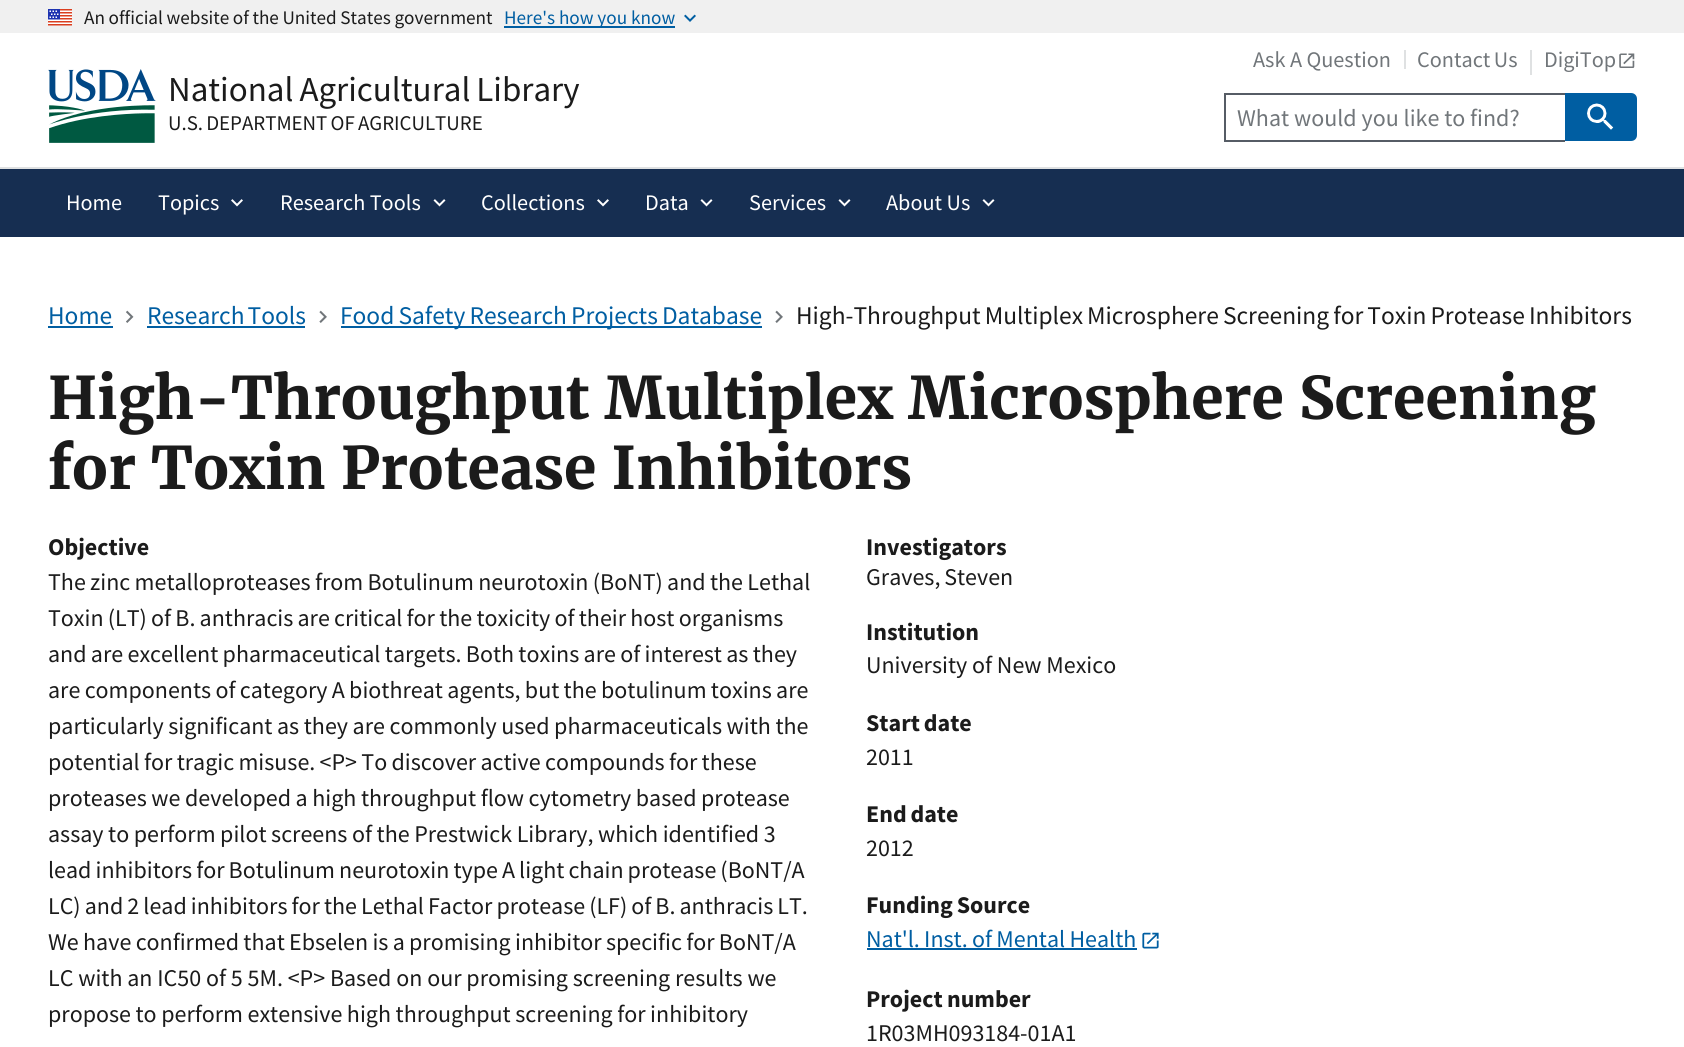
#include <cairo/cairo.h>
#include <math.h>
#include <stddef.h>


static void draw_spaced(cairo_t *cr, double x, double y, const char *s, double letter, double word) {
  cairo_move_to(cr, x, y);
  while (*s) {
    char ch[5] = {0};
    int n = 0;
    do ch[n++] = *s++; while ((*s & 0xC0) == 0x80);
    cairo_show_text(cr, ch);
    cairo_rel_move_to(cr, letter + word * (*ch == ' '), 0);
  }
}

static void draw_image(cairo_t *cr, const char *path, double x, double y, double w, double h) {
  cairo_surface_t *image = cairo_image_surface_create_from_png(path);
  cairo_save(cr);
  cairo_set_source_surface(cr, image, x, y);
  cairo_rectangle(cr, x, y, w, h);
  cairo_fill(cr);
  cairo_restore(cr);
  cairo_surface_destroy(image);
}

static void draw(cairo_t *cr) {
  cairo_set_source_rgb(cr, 1, 1, 1);
  cairo_paint(cr);
  cairo_set_source_rgb(cr, 240 / 255.0, 240 / 255.0, 240 / 255.0);
  cairo_rectangle(cr, 0, 0, 1684, 33);
  cairo_fill(cr);
  draw_image(cr, "images/1.png", 48, 9, 24, 17);
  cairo_set_source_rgb(cr, 0, 94 / 255.0, 162 / 255.0);
  cairo_rectangle(cr, 504, 26, 171, 2);
  cairo_fill(cr);
  draw_image(cr, "images/2.png", 684, 14, 12, 8);
  cairo_set_source_rgb(cr, 22 / 255.0, 46 / 255.0, 81 / 255.0);
  cairo_rectangle(cr, 0, 169, 1684, 68);
  cairo_fill(cr);
  cairo_set_source_rgb(cr, 223 / 255.0, 225 / 255.0, 226 / 255.0);
  cairo_rectangle(cr, 0, 167, 1684, 2);
  cairo_fill(cr);
  cairo_rectangle(cr, 1404, 50, 2, 19);
  cairo_fill(cr);
  cairo_rectangle(cr, 1530, 50, 2, 25);
  cairo_fill(cr);
  draw_image(cr, "images/3.png", 1619, 53, 16, 15);
  cairo_set_source_rgb(cr, 86 / 255.0, 92 / 255.0, 101 / 255.0);
  cairo_rectangle(cr, 1224, 93, 341, 2);
  cairo_fill(cr);
  cairo_rectangle(cr, 1224, 140, 341, 2);
  cairo_fill(cr);
  cairo_rectangle(cr, 1224, 93, 2, 48);
  cairo_fill(cr);
  cairo_set_source_rgb(cr, 0, 94 / 255.0, 162 / 255.0);
  cairo_new_path(cr);
  cairo_move_to(cr, 1565, 93);
  cairo_line_to(cr, 1631, 93);
  cairo_curve_to(cr, 1634.5, 93, 1637, 95.5, 1637, 99);
  cairo_line_to(cr, 1637, 135);
  cairo_curve_to(cr, 1637, 138.5, 1634.5, 141, 1631, 141);
  cairo_line_to(cr, 1565, 141);
  cairo_close_path(cr);
  cairo_fill(cr);
  draw_image(cr, "images/4.png", 1587, 103, 27, 27);
  draw_image(cr, "images/5.png", 231, 199, 12, 8);
  draw_image(cr, "images/6.png", 433, 199, 13, 8);
  draw_image(cr, "images/5.png", 597, 199, 12, 8);
  draw_image(cr, "images/6.png", 700, 199, 13, 8);
  draw_image(cr, "images/6.png", 838, 199, 13, 8);
  draw_image(cr, "images/6.png", 982, 199, 13, 8);
  draw_image(cr, "images/7.png", 48, 69, 108, 74);
  cairo_rectangle(cr, 48, 326, 65, 2);
  cairo_fill(cr);
  draw_image(cr, "images/8.png", 126, 310, 8, 13);
  cairo_rectangle(cr, 147, 326, 158, 2);
  cairo_fill(cr);
  draw_image(cr, "images/9.png", 319, 310, 8, 13);
  cairo_rectangle(cr, 341, 326, 421, 2);
  cairo_fill(cr);
  draw_image(cr, "images/9.png", 775, 310, 8, 13);
  cairo_rectangle(cr, 867, 948, 270, 2);
  cairo_fill(cr);
  draw_image(cr, "images/10.png", 1142, 932, 17, 17);
  cairo_select_font_face(cr, "Source Sans Pro", CAIRO_FONT_SLANT_NORMAL, CAIRO_FONT_WEIGHT_NORMAL);
  cairo_set_font_size(cr, 19.2);
  cairo_set_source_rgb(cr, 27 / 255.0, 27 / 255.0, 27 / 255.0);
  draw_spaced(cr, 84, 24, "An official website of the United States government", 0, -0.25);
  cairo_set_source_rgb(cr, 0, 94 / 255.0, 162 / 255.0);
  cairo_move_to(cr, 504, 24);
  cairo_show_text(cr, "Here's how you know");
  cairo_set_font_size(cr, 22.25);
  cairo_set_source_rgb(cr, 113 / 255.0, 118 / 255.0, 122 / 255.0);
  cairo_move_to(cr, 1253, 67);
  cairo_show_text(cr, "Ask A Question");
  draw_spaced(cr, 1417, 67, "Contact Us", 0, -1);
  cairo_move_to(cr, 1544, 67);
  cairo_show_text(cr, "DigiTop");
  cairo_set_font_size(cr, 24);
  cairo_move_to(cr, 1237, 126);
  cairo_show_text(cr, "What would you like to find?");
  cairo_set_font_size(cr, 22.25);
  cairo_set_source_rgb(cr, 1, 1, 1);
  cairo_move_to(cr, 66, 210);
  cairo_show_text(cr, "Home");
  cairo_move_to(cr, 158, 210);
  cairo_show_text(cr, "Topics");
  cairo_move_to(cr, 280, 210);
  cairo_show_text(cr, "Research Tools");
  cairo_move_to(cr, 481, 210);
  cairo_show_text(cr, "Collections");
  cairo_move_to(cr, 645, 210);
  cairo_show_text(cr, "Data");
  cairo_move_to(cr, 749, 210);
  cairo_show_text(cr, "Services");
  cairo_move_to(cr, 886, 210);
  cairo_show_text(cr, "About Us");
  cairo_set_font_size(cr, 35);
  cairo_set_source_rgb(cr, 27 / 255.0, 27 / 255.0, 27 / 255.0);
  draw_spaced(cr, 168, 101, "National Agricultural Library", 0, -1);
  cairo_set_font_size(cr, 20.9);
  draw_spaced(cr, 168, 130, "U.S. DEPARTMENT OF AGRICULTURE", 0, -1);
  cairo_set_font_size(cr, 25.45);
  cairo_set_source_rgb(cr, 0, 94 / 255.0, 162 / 255.0);
  cairo_move_to(cr, 48, 324);
  cairo_show_text(cr, "Home");
  draw_spaced(cr, 147, 324, "Research Tools", 0, -2);
  draw_spaced(cr, 340, 324, "Food Safety Research Projects Database", 0, -1);
  cairo_set_source_rgb(cr, 27 / 255.0, 27 / 255.0, 27 / 255.0);
  draw_spaced(cr, 796, 324, "High-Throughput Multiplex Microsphere Screening for Toxin Protease Inhibitors", 0, -1);
  cairo_select_font_face(cr, "Merriweather", CAIRO_FONT_SLANT_NORMAL, CAIRO_FONT_WEIGHT_BOLD);
  cairo_set_font_size(cr, 58.55);
  cairo_move_to(cr, 48, 419);
  cairo_show_text(cr, "High-Throughput Multiplex Microsphere Screening");
  cairo_move_to(cr, 48, 489);
  cairo_show_text(cr, "for Toxin Protease Inhibitors");
  cairo_select_font_face(cr, "Source Sans Pro", CAIRO_FONT_SLANT_NORMAL, CAIRO_FONT_WEIGHT_BOLD);
  cairo_set_font_size(cr, 24);
  cairo_move_to(cr, 48, 555);
  cairo_show_text(cr, "Objective");
  cairo_select_font_face(cr, "Source Sans Pro", CAIRO_FONT_SLANT_NORMAL, CAIRO_FONT_WEIGHT_NORMAL);
  draw_spaced(cr, 48, 590, "The zinc metalloproteases from Botulinum neurotoxin (BoNT) and the Lethal", 0, -0.5);
  draw_spaced(cr, 48, 626, "Toxin (LT) of B. anthracis are critical for the toxicity of their host organisms", 0, -0.6);
  draw_spaced(cr, 48, 662, "and are excellent pharmaceutical targets. Both toxins are of interest as they", 0, -0.5);
  draw_spaced(cr, 48, 698, "are components of category A biothreat agents, but the botulinum toxins are", 0, -0.5);
  draw_spaced(cr, 48, 734, "particularly significant as they are commonly used pharmaceuticals with the", 0, -0.25);
  draw_spaced(cr, 48, 770, "potential for tragic misuse. <P> To discover active compounds for these", 0, -0.5);
  draw_spaced(cr, 48, 806, "proteases we developed a high throughput flow cytometry based protease", 0, -0.25);
  draw_spaced(cr, 48, 842, "assay to perform pilot screens of the Prestwick Library, which identified 3", 0, -0.25);
  draw_spaced(cr, 48, 878, "lead inhibitors for Botulinum neurotoxin type A light chain protease (BoNT/A", 0, -0.75);
  draw_spaced(cr, 48, 914, "LC) and 2 lead inhibitors for the Lethal Factor protease (LF) of B. anthracis LT.", 0, -0.75);
  draw_spaced(cr, 48, 950, "We have confirmed that Ebselen is a promising inhibitor specific for BoNT/A", 0, -0.5);
  cairo_move_to(cr, 48, 986);
  cairo_show_text(cr, "LC with an IC50 of 5 5M. <P> Based on our promising screening results we");
  draw_spaced(cr, 48, 1022, "propose to perform extensive high throughput screening for inhibitory", 0, -0.25);
  cairo_select_font_face(cr, "Source Sans Pro", CAIRO_FONT_SLANT_NORMAL, CAIRO_FONT_WEIGHT_BOLD);
  cairo_move_to(cr, 866, 555);
  cairo_show_text(cr, "Investigators");
  cairo_select_font_face(cr, "Source Sans Pro", CAIRO_FONT_SLANT_NORMAL, CAIRO_FONT_WEIGHT_NORMAL);
  draw_spaced(cr, 866, 585, "Graves, Steven", 0, -1);
  cairo_select_font_face(cr, "Source Sans Pro", CAIRO_FONT_SLANT_NORMAL, CAIRO_FONT_WEIGHT_BOLD);
  cairo_move_to(cr, 866, 640);
  cairo_show_text(cr, "Institution");
  cairo_select_font_face(cr, "Source Sans Pro", CAIRO_FONT_SLANT_NORMAL, CAIRO_FONT_WEIGHT_NORMAL);
  cairo_move_to(cr, 866, 673);
  cairo_show_text(cr, "University of New Mexico");
  cairo_select_font_face(cr, "Source Sans Pro", CAIRO_FONT_SLANT_NORMAL, CAIRO_FONT_WEIGHT_BOLD);
  draw_spaced(cr, 866, 731, "Start date", 0, -1);
  cairo_select_font_face(cr, "Source Sans Pro", CAIRO_FONT_SLANT_NORMAL, CAIRO_FONT_WEIGHT_NORMAL);
  cairo_move_to(cr, 866, 765);
  cairo_show_text(cr, "2011");
  cairo_select_font_face(cr, "Source Sans Pro", CAIRO_FONT_SLANT_NORMAL, CAIRO_FONT_WEIGHT_BOLD);
  draw_spaced(cr, 866, 822, "End date", 0, -1);
  cairo_select_font_face(cr, "Source Sans Pro", CAIRO_FONT_SLANT_NORMAL, CAIRO_FONT_WEIGHT_NORMAL);
  cairo_move_to(cr, 866, 856);
  cairo_show_text(cr, "2012");
  cairo_select_font_face(cr, "Source Sans Pro", CAIRO_FONT_SLANT_NORMAL, CAIRO_FONT_WEIGHT_BOLD);
  draw_spaced(cr, 866, 913, "Funding Source", 0, -1);
  cairo_select_font_face(cr, "Source Sans Pro", CAIRO_FONT_SLANT_NORMAL, CAIRO_FONT_WEIGHT_NORMAL);
  cairo_set_source_rgb(cr, 0, 94 / 255.0, 162 / 255.0);
  draw_spaced(cr, 866, 947, "Nat'l. Inst. of Mental Health", 0, -0.5);
  cairo_select_font_face(cr, "Source Sans Pro", CAIRO_FONT_SLANT_NORMAL, CAIRO_FONT_WEIGHT_BOLD);
  cairo_set_source_rgb(cr, 27 / 255.0, 27 / 255.0, 27 / 255.0);
  draw_spaced(cr, 866, 1007, "Project number", 0, -0.5);
  cairo_select_font_face(cr, "Source Sans Pro", CAIRO_FONT_SLANT_NORMAL, CAIRO_FONT_WEIGHT_NORMAL);
  cairo_move_to(cr, 866, 1041);
  cairo_show_text(cr, "1R03MH093184-01A1");
}

int main(void) {
  cairo_surface_t *surface = cairo_image_surface_create(CAIRO_FORMAT_RGB24, 1684, 1047);
  cairo_t *cr = cairo_create(surface);
  cairo_font_options_t *options = cairo_font_options_create();
  cairo_font_options_set_hint_metrics(options, CAIRO_HINT_METRICS_OFF);
  cairo_font_options_set_hint_style(options, CAIRO_HINT_STYLE_NONE);
  cairo_set_font_options(cr, options);
  cairo_set_miter_limit(cr, 4);
  draw(cr);
  cairo_surface_write_to_png(surface, "out.png");
  cairo_font_options_destroy(options);
  cairo_destroy(cr);
  cairo_surface_destroy(surface);
  return 0;
}
